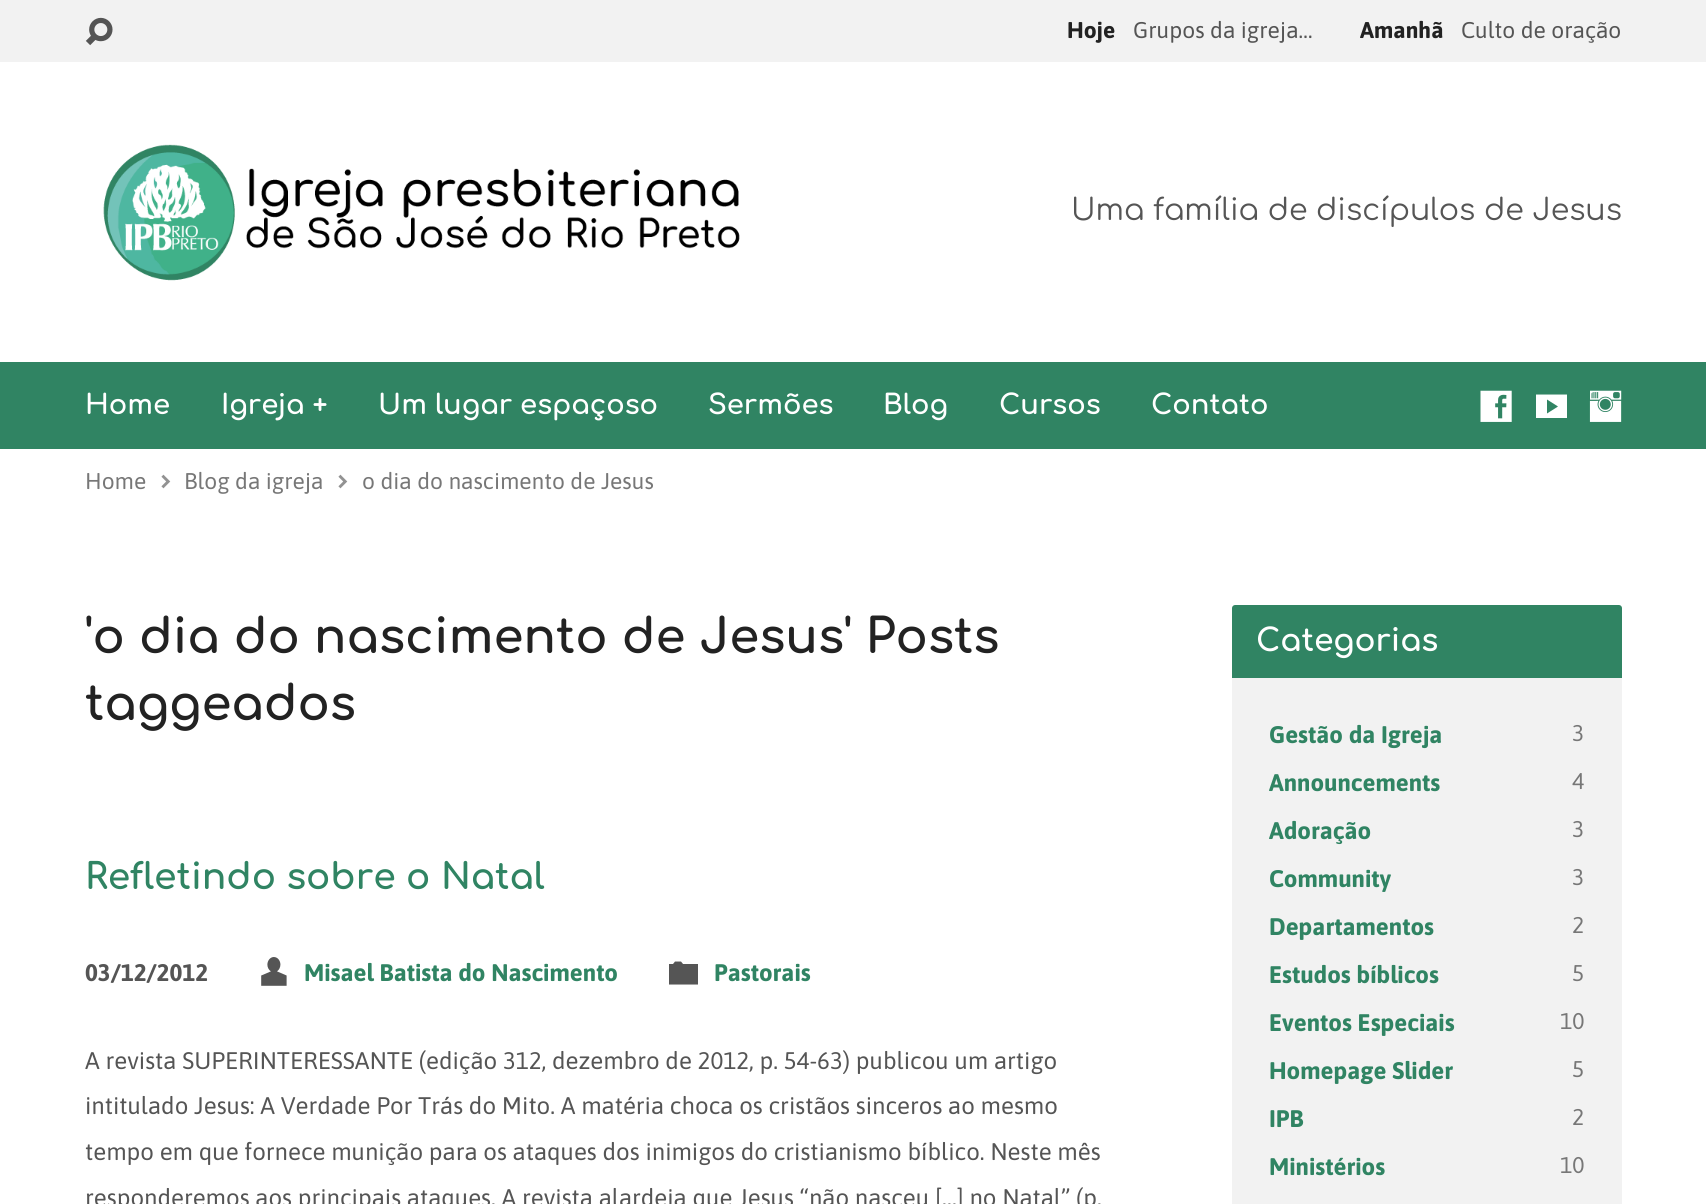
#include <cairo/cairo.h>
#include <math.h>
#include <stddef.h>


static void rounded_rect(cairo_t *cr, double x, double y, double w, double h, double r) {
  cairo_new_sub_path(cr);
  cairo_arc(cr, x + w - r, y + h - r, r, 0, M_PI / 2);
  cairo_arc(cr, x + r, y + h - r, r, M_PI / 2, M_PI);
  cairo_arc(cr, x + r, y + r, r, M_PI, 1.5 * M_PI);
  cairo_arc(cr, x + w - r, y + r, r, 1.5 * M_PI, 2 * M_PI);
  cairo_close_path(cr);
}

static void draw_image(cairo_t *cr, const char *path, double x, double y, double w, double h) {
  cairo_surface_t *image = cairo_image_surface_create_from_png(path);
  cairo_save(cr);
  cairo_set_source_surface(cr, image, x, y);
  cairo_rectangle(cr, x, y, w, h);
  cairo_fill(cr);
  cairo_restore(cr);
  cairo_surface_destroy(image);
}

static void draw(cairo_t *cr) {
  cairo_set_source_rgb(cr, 1, 1, 1);
  cairo_paint(cr);
  cairo_set_source_rgb(cr, 242 / 255.0, 242 / 255.0, 242 / 255.0);
  cairo_rectangle(cr, 0, 0, 1706, 62);
  cairo_fill(cr);
  draw_image(cr, "images/1.png", 85, 17, 28, 29);
  draw_image(cr, "images/2.png", 103, 144, 637, 137);
  cairo_set_source_rgb(cr, 48 / 255.0, 132 / 255.0, 99 / 255.0);
  cairo_rectangle(cr, 0, 362, 1706, 87);
  cairo_fill(cr);
  draw_image(cr, "images/3.png", 1480, 390, 32, 32);
  cairo_set_source_rgb(cr, 1, 1, 1);
  cairo_new_path(cr);
  cairo_move_to(cr, 1567, 418);
  cairo_line_to(cr, 1536, 418);
  cairo_line_to(cr, 1536, 394.5);
  cairo_line_to(cr, 1567, 394.5);
  cairo_close_path(cr);
  cairo_move_to(cr, 1547, 413.5);
  cairo_line_to(cr, 1558, 406.5);
  cairo_line_to(cr, 1547, 399.5);
  cairo_close_path(cr);
  cairo_fill(cr);
  draw_image(cr, "images/4.png", 1589, 390, 33, 32);
  draw_image(cr, "images/5.png", 161, 474, 10, 15);
  draw_image(cr, "images/5.png", 338, 474, 10, 15);
  draw_image(cr, "images/6.png", 261, 957, 26, 29);
  cairo_set_source_rgb(cr, 85 / 255.0, 85 / 255.0, 85 / 255.0);
  cairo_new_path(cr);
  cairo_move_to(cr, 675, 961.5);
  cairo_line_to(cr, 673, 964);
  cairo_line_to(cr, 669, 964);
  cairo_line_to(cr, 669, 984.5);
  cairo_line_to(cr, 698, 984.5);
  cairo_line_to(cr, 698, 964);
  cairo_line_to(cr, 683, 964);
  cairo_line_to(cr, 681, 961.5);
  cairo_close_path(cr);
  cairo_fill(cr);
  cairo_set_source_rgb(cr, 242 / 255.0, 242 / 255.0, 242 / 255.0);
  rounded_rect(cr, 1232, 605, 390, 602, 3);
  cairo_fill(cr);
  cairo_set_source_rgb(cr, 48 / 255.0, 132 / 255.0, 99 / 255.0);
  cairo_new_path(cr);
  cairo_move_to(cr, 1235, 605);
  cairo_line_to(cr, 1619, 605);
  cairo_curve_to(cr, 1620.5, 605, 1622, 606.5, 1622, 608);
  cairo_line_to(cr, 1622, 678);
  cairo_line_to(cr, 1232, 678);
  cairo_line_to(cr, 1232, 608);
  cairo_curve_to(cr, 1232, 606.5, 1233.5, 605, 1235, 605);
  cairo_close_path(cr);
  cairo_fill(cr);
  cairo_select_font_face(cr, "Asap", CAIRO_FONT_SLANT_NORMAL, CAIRO_FONT_WEIGHT_BOLD);
  cairo_set_font_size(cr, 22.75);
  cairo_set_source_rgb(cr, 34 / 255.0, 34 / 255.0, 34 / 255.0);
  cairo_move_to(cr, 1067, 38);
  cairo_show_text(cr, "Hoje");
  cairo_select_font_face(cr, "Asap", CAIRO_FONT_SLANT_NORMAL, CAIRO_FONT_WEIGHT_NORMAL);
  cairo_set_source_rgb(cr, 85 / 255.0, 85 / 255.0, 85 / 255.0);
  cairo_move_to(cr, 1133, 38);
  cairo_show_text(cr, "Grupos da igreja…");
  cairo_select_font_face(cr, "Asap", CAIRO_FONT_SLANT_NORMAL, CAIRO_FONT_WEIGHT_BOLD);
  cairo_set_source_rgb(cr, 34 / 255.0, 34 / 255.0, 34 / 255.0);
  cairo_move_to(cr, 1360, 38);
  cairo_show_text(cr, "Amanhã");
  cairo_select_font_face(cr, "Asap", CAIRO_FONT_SLANT_NORMAL, CAIRO_FONT_WEIGHT_NORMAL);
  cairo_set_source_rgb(cr, 85 / 255.0, 85 / 255.0, 85 / 255.0);
  cairo_move_to(cr, 1461, 38);
  cairo_show_text(cr, "Culto de oração");
  cairo_select_font_face(cr, "Comfortaa", CAIRO_FONT_SLANT_NORMAL, CAIRO_FONT_WEIGHT_NORMAL);
  cairo_set_font_size(cr, 30);
  cairo_move_to(cr, 1071, 220);
  cairo_show_text(cr, "Uma família de discípulos de Jesus");
  cairo_select_font_face(cr, "Comfortaa", CAIRO_FONT_SLANT_NORMAL, CAIRO_FONT_WEIGHT_BOLD);
  cairo_set_font_size(cr, 27.4);
  cairo_set_source_rgb(cr, 1, 1, 1);
  cairo_move_to(cr, 85, 414);
  cairo_show_text(cr, "Home");
  cairo_move_to(cr, 221, 414);
  cairo_show_text(cr, "Igreja +");
  cairo_move_to(cr, 378, 414);
  cairo_show_text(cr, "Um lugar espaçoso");
  cairo_move_to(cr, 708, 414);
  cairo_show_text(cr, "Sermões");
  cairo_move_to(cr, 883, 414);
  cairo_show_text(cr, "Blog");
  cairo_move_to(cr, 999, 414);
  cairo_show_text(cr, "Cursos");
  cairo_move_to(cr, 1151, 414);
  cairo_show_text(cr, "Contato");
  cairo_select_font_face(cr, "Asap", CAIRO_FONT_SLANT_NORMAL, CAIRO_FONT_WEIGHT_NORMAL);
  cairo_set_font_size(cr, 22.75);
  cairo_set_source_rgb(cr, 119 / 255.0, 119 / 255.0, 119 / 255.0);
  cairo_move_to(cr, 85, 489);
  cairo_show_text(cr, "Home");
  cairo_move_to(cr, 184, 489);
  cairo_show_text(cr, "Blog da igreja");
  cairo_move_to(cr, 362, 489);
  cairo_show_text(cr, "o dia do nascimento de Jesus");
  cairo_select_font_face(cr, "Comfortaa", CAIRO_FONT_SLANT_NORMAL, CAIRO_FONT_WEIGHT_BOLD);
  cairo_set_font_size(cr, 48);
  cairo_set_source_rgb(cr, 34 / 255.0, 34 / 255.0, 34 / 255.0);
  cairo_move_to(cr, 85, 653);
  cairo_show_text(cr, "'o dia do nascimento de Jesus' Posts");
  cairo_move_to(cr, 85, 720);
  cairo_show_text(cr, "taggeados");
  cairo_set_font_size(cr, 36);
  cairo_set_source_rgb(cr, 48 / 255.0, 132 / 255.0, 99 / 255.0);
  cairo_move_to(cr, 85, 889);
  cairo_show_text(cr, "Refletindo sobre o Natal");
  cairo_select_font_face(cr, "Asap", CAIRO_FONT_SLANT_NORMAL, CAIRO_FONT_WEIGHT_BOLD);
  cairo_set_font_size(cr, 24);
  cairo_set_source_rgb(cr, 85 / 255.0, 85 / 255.0, 85 / 255.0);
  cairo_move_to(cr, 85, 981);
  cairo_show_text(cr, "03/12/2012");
  cairo_set_source_rgb(cr, 48 / 255.0, 132 / 255.0, 99 / 255.0);
  cairo_move_to(cr, 304, 981);
  cairo_show_text(cr, "Misael Batista do Nascimento");
  cairo_move_to(cr, 714, 981);
  cairo_show_text(cr, "Pastorais");
  cairo_select_font_face(cr, "Asap", CAIRO_FONT_SLANT_NORMAL, CAIRO_FONT_WEIGHT_NORMAL);
  cairo_set_source_rgb(cr, 85 / 255.0, 85 / 255.0, 85 / 255.0);
  cairo_move_to(cr, 85, 1069);
  cairo_show_text(cr, "A revista SUPERINTERESSANTE (edição 312, dezembro de 2012, p. 54-63) publicou um artigo");
  cairo_move_to(cr, 85, 1114);
  cairo_show_text(cr, "intitulado Jesus: A Verdade Por Trás do Mito. A matéria choca os cristãos sinceros ao mesmo");
  cairo_move_to(cr, 85, 1160);
  cairo_show_text(cr, "tempo em que fornece munição para os ataques dos inimigos do cristianismo bíblico. Neste mês");
  cairo_move_to(cr, 85, 1206);
  cairo_show_text(cr, "responderemos aos principais ataques. A revista alardeia que Jesus “não nasceu […] no Natal” (p.");
  cairo_select_font_face(cr, "Comfortaa", CAIRO_FONT_SLANT_NORMAL, CAIRO_FONT_WEIGHT_BOLD);
  cairo_set_font_size(cr, 31.25);
  cairo_set_source_rgb(cr, 1, 1, 1);
  cairo_move_to(cr, 1256, 651);
  cairo_show_text(cr, "Categorias");
  cairo_select_font_face(cr, "Asap", CAIRO_FONT_SLANT_NORMAL, CAIRO_FONT_WEIGHT_BOLD);
  cairo_set_font_size(cr, 24);
  cairo_set_source_rgb(cr, 48 / 255.0, 132 / 255.0, 99 / 255.0);
  cairo_move_to(cr, 1269, 743);
  cairo_show_text(cr, "Gestão da Igreja");
  cairo_select_font_face(cr, "Asap", CAIRO_FONT_SLANT_NORMAL, CAIRO_FONT_WEIGHT_NORMAL);
  cairo_set_font_size(cr, 22.75);
  cairo_set_source_rgb(cr, 119 / 255.0, 119 / 255.0, 119 / 255.0);
  cairo_move_to(cr, 1572, 741);
  cairo_show_text(cr, "3");
  cairo_select_font_face(cr, "Asap", CAIRO_FONT_SLANT_NORMAL, CAIRO_FONT_WEIGHT_BOLD);
  cairo_set_font_size(cr, 24);
  cairo_set_source_rgb(cr, 48 / 255.0, 132 / 255.0, 99 / 255.0);
  cairo_move_to(cr, 1269, 791);
  cairo_show_text(cr, "Announcements");
  cairo_select_font_face(cr, "Asap", CAIRO_FONT_SLANT_NORMAL, CAIRO_FONT_WEIGHT_NORMAL);
  cairo_set_font_size(cr, 22.75);
  cairo_set_source_rgb(cr, 119 / 255.0, 119 / 255.0, 119 / 255.0);
  cairo_move_to(cr, 1572, 789);
  cairo_show_text(cr, "4");
  cairo_select_font_face(cr, "Asap", CAIRO_FONT_SLANT_NORMAL, CAIRO_FONT_WEIGHT_BOLD);
  cairo_set_font_size(cr, 24);
  cairo_set_source_rgb(cr, 48 / 255.0, 132 / 255.0, 99 / 255.0);
  cairo_move_to(cr, 1269, 839);
  cairo_show_text(cr, "Adoração");
  cairo_select_font_face(cr, "Asap", CAIRO_FONT_SLANT_NORMAL, CAIRO_FONT_WEIGHT_NORMAL);
  cairo_set_font_size(cr, 22.75);
  cairo_set_source_rgb(cr, 119 / 255.0, 119 / 255.0, 119 / 255.0);
  cairo_move_to(cr, 1572, 837);
  cairo_show_text(cr, "3");
  cairo_select_font_face(cr, "Asap", CAIRO_FONT_SLANT_NORMAL, CAIRO_FONT_WEIGHT_BOLD);
  cairo_set_font_size(cr, 24);
  cairo_set_source_rgb(cr, 48 / 255.0, 132 / 255.0, 99 / 255.0);
  cairo_move_to(cr, 1269, 887);
  cairo_show_text(cr, "Community");
  cairo_select_font_face(cr, "Asap", CAIRO_FONT_SLANT_NORMAL, CAIRO_FONT_WEIGHT_NORMAL);
  cairo_set_font_size(cr, 22.75);
  cairo_set_source_rgb(cr, 119 / 255.0, 119 / 255.0, 119 / 255.0);
  cairo_move_to(cr, 1572, 885);
  cairo_show_text(cr, "3");
  cairo_select_font_face(cr, "Asap", CAIRO_FONT_SLANT_NORMAL, CAIRO_FONT_WEIGHT_BOLD);
  cairo_set_font_size(cr, 24);
  cairo_set_source_rgb(cr, 48 / 255.0, 132 / 255.0, 99 / 255.0);
  cairo_move_to(cr, 1269, 935);
  cairo_show_text(cr, "Departamentos");
  cairo_select_font_face(cr, "Asap", CAIRO_FONT_SLANT_NORMAL, CAIRO_FONT_WEIGHT_NORMAL);
  cairo_set_font_size(cr, 22.75);
  cairo_set_source_rgb(cr, 119 / 255.0, 119 / 255.0, 119 / 255.0);
  cairo_move_to(cr, 1572, 933);
  cairo_show_text(cr, "2");
  cairo_select_font_face(cr, "Asap", CAIRO_FONT_SLANT_NORMAL, CAIRO_FONT_WEIGHT_BOLD);
  cairo_set_font_size(cr, 24);
  cairo_set_source_rgb(cr, 48 / 255.0, 132 / 255.0, 99 / 255.0);
  cairo_move_to(cr, 1269, 983);
  cairo_show_text(cr, "Estudos bíblicos");
  cairo_select_font_face(cr, "Asap", CAIRO_FONT_SLANT_NORMAL, CAIRO_FONT_WEIGHT_NORMAL);
  cairo_set_font_size(cr, 22.75);
  cairo_set_source_rgb(cr, 119 / 255.0, 119 / 255.0, 119 / 255.0);
  cairo_move_to(cr, 1572, 981);
  cairo_show_text(cr, "5");
  cairo_select_font_face(cr, "Asap", CAIRO_FONT_SLANT_NORMAL, CAIRO_FONT_WEIGHT_BOLD);
  cairo_set_font_size(cr, 24);
  cairo_set_source_rgb(cr, 48 / 255.0, 132 / 255.0, 99 / 255.0);
  cairo_move_to(cr, 1269, 1031);
  cairo_show_text(cr, "Eventos Especiais");
  cairo_select_font_face(cr, "Asap", CAIRO_FONT_SLANT_NORMAL, CAIRO_FONT_WEIGHT_NORMAL);
  cairo_set_font_size(cr, 22.75);
  cairo_set_source_rgb(cr, 119 / 255.0, 119 / 255.0, 119 / 255.0);
  cairo_move_to(cr, 1560, 1029);
  cairo_show_text(cr, "10");
  cairo_select_font_face(cr, "Asap", CAIRO_FONT_SLANT_NORMAL, CAIRO_FONT_WEIGHT_BOLD);
  cairo_set_font_size(cr, 24);
  cairo_set_source_rgb(cr, 48 / 255.0, 132 / 255.0, 99 / 255.0);
  cairo_move_to(cr, 1269, 1079);
  cairo_show_text(cr, "Homepage Slider");
  cairo_select_font_face(cr, "Asap", CAIRO_FONT_SLANT_NORMAL, CAIRO_FONT_WEIGHT_NORMAL);
  cairo_set_font_size(cr, 22.75);
  cairo_set_source_rgb(cr, 119 / 255.0, 119 / 255.0, 119 / 255.0);
  cairo_move_to(cr, 1572, 1077);
  cairo_show_text(cr, "5");
  cairo_select_font_face(cr, "Asap", CAIRO_FONT_SLANT_NORMAL, CAIRO_FONT_WEIGHT_BOLD);
  cairo_set_font_size(cr, 24);
  cairo_set_source_rgb(cr, 48 / 255.0, 132 / 255.0, 99 / 255.0);
  cairo_move_to(cr, 1269, 1127);
  cairo_show_text(cr, "IPB");
  cairo_select_font_face(cr, "Asap", CAIRO_FONT_SLANT_NORMAL, CAIRO_FONT_WEIGHT_NORMAL);
  cairo_set_font_size(cr, 22.75);
  cairo_set_source_rgb(cr, 119 / 255.0, 119 / 255.0, 119 / 255.0);
  cairo_move_to(cr, 1572, 1125);
  cairo_show_text(cr, "2");
  cairo_select_font_face(cr, "Asap", CAIRO_FONT_SLANT_NORMAL, CAIRO_FONT_WEIGHT_BOLD);
  cairo_set_font_size(cr, 24);
  cairo_set_source_rgb(cr, 48 / 255.0, 132 / 255.0, 99 / 255.0);
  cairo_move_to(cr, 1269, 1175);
  cairo_show_text(cr, "Ministérios");
  cairo_select_font_face(cr, "Asap", CAIRO_FONT_SLANT_NORMAL, CAIRO_FONT_WEIGHT_NORMAL);
  cairo_set_font_size(cr, 22.75);
  cairo_set_source_rgb(cr, 119 / 255.0, 119 / 255.0, 119 / 255.0);
  cairo_move_to(cr, 1560, 1173);
  cairo_show_text(cr, "10");
}

int main(void) {
  cairo_surface_t *surface = cairo_image_surface_create(CAIRO_FORMAT_RGB24, 1706, 1204);
  cairo_t *cr = cairo_create(surface);
  cairo_font_options_t *options = cairo_font_options_create();
  cairo_font_options_set_hint_metrics(options, CAIRO_HINT_METRICS_OFF);
  cairo_font_options_set_hint_style(options, CAIRO_HINT_STYLE_NONE);
  cairo_set_font_options(cr, options);
  cairo_set_miter_limit(cr, 4);
  draw(cr);
  cairo_surface_write_to_png(surface, "out.png");
  cairo_font_options_destroy(options);
  cairo_destroy(cr);
  cairo_surface_destroy(surface);
  return 0;
}
